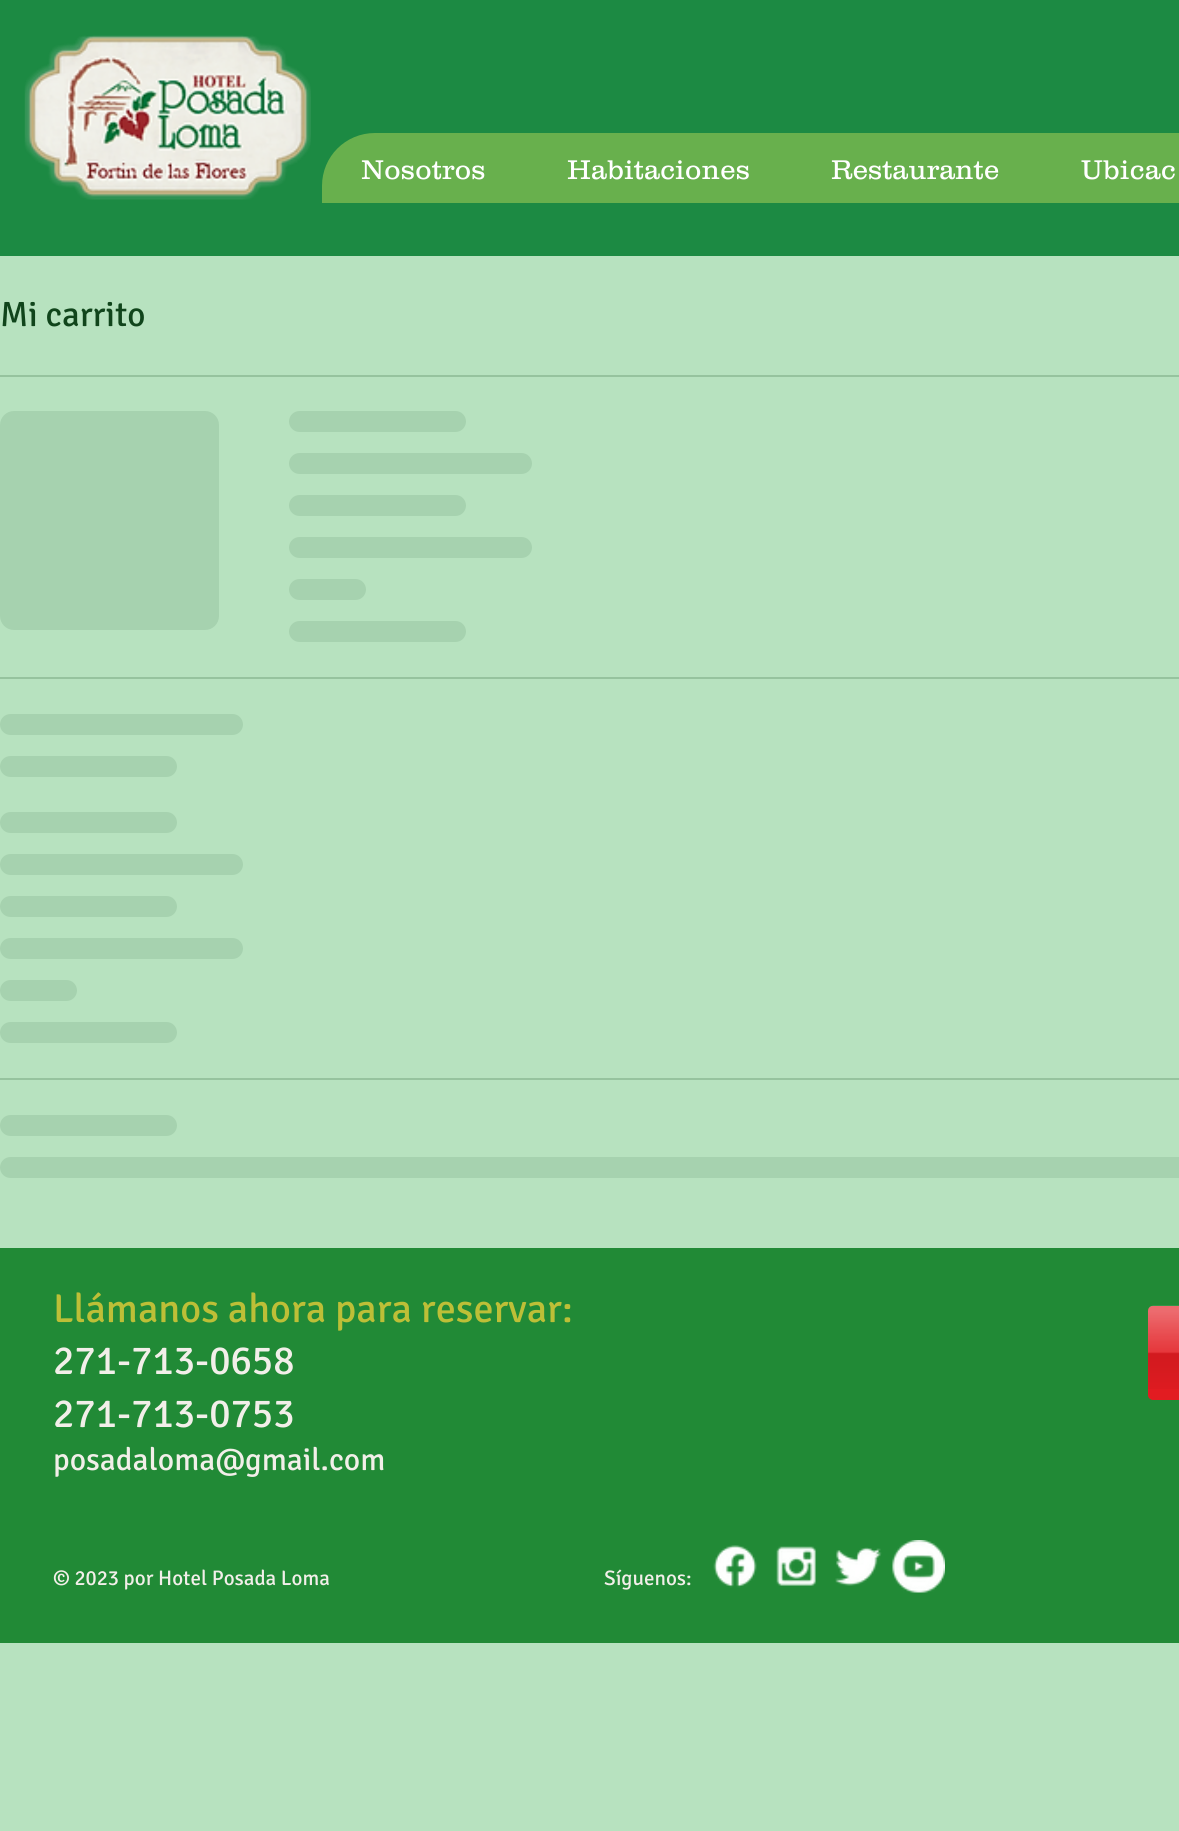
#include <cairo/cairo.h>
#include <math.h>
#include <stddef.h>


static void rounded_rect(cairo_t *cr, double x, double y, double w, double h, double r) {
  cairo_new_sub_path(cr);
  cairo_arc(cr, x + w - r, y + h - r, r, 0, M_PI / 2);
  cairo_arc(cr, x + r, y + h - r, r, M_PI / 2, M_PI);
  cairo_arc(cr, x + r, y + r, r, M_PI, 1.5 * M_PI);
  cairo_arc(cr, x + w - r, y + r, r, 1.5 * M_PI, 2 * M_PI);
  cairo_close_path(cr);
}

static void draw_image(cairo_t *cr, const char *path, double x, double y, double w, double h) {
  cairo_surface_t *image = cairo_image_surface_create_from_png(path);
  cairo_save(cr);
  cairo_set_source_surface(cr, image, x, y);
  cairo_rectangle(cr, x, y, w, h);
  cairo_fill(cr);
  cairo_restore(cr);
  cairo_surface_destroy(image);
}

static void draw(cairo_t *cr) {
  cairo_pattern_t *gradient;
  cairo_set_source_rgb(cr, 183 / 255.0, 226 / 255.0, 191 / 255.0);
  cairo_paint(cr);
  cairo_set_source_rgb(cr, 28 / 255.0, 138 / 255.0, 67 / 255.0);
  cairo_rectangle(cr, 0, 0, 1179, 256);
  cairo_fill(cr);
  draw_image(cr, "images/1.png", 24, 35, 287, 165);
  cairo_set_source_rgb(cr, 104 / 255.0, 176 / 255.0, 77 / 255.0);
  cairo_new_path(cr);
  cairo_move_to(cr, 375, 133);
  cairo_line_to(cr, 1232, 133);
  cairo_line_to(cr, 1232, 150);
  cairo_curve_to(cr, 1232, 179.5, 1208.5, 203, 1179, 203);
  cairo_line_to(cr, 322, 203);
  cairo_line_to(cr, 322, 186);
  cairo_curve_to(cr, 322, 156.5, 345.5, 133, 375, 133);
  cairo_close_path(cr);
  cairo_fill(cr);
  cairo_set_source_rgb(cr, 150 / 255.0, 195 / 255.0, 158 / 255.0);
  cairo_rectangle(cr, 0, 375, 1179, 2);
  cairo_fill(cr);
  gradient = cairo_pattern_create_linear(0, 521, 875, 521);
  cairo_pattern_add_color_stop_rgba(gradient, 0.25, 166 / 255.0, 210 / 255.0, 175 / 255.0, 1);
  cairo_pattern_add_color_stop_rgba(gradient, 0.37, 150 / 255.0, 195 / 255.0, 158 / 255.0, 1);
  cairo_pattern_add_color_stop_rgba(gradient, 0.63, 166 / 255.0, 210 / 255.0, 175 / 255.0, 1);
  cairo_set_source(cr, gradient);
  cairo_pattern_destroy(gradient);
  rounded_rect(cr, 0, 411, 219, 219, 14);
  cairo_fill(cr);
  gradient = cairo_pattern_create_linear(289, 422, 996, 422);
  cairo_pattern_add_color_stop_rgba(gradient, 0.25, 166 / 255.0, 210 / 255.0, 175 / 255.0, 1);
  cairo_pattern_add_color_stop_rgba(gradient, 0.37, 150 / 255.0, 195 / 255.0, 158 / 255.0, 1);
  cairo_pattern_add_color_stop_rgba(gradient, 0.63, 166 / 255.0, 210 / 255.0, 175 / 255.0, 1);
  cairo_set_source(cr, gradient);
  cairo_pattern_destroy(gradient);
  rounded_rect(cr, 289, 411, 177, 21, 10.5);
  cairo_fill(cr);
  gradient = cairo_pattern_create_linear(289, 464, 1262, 464);
  cairo_pattern_add_color_stop_rgba(gradient, 0.25, 166 / 255.0, 210 / 255.0, 175 / 255.0, 1);
  cairo_pattern_add_color_stop_rgba(gradient, 0.37, 150 / 255.0, 195 / 255.0, 158 / 255.0, 1);
  cairo_pattern_add_color_stop_rgba(gradient, 0.63, 166 / 255.0, 210 / 255.0, 175 / 255.0, 1);
  cairo_set_source(cr, gradient);
  cairo_pattern_destroy(gradient);
  rounded_rect(cr, 289, 453, 243, 21, 10.5);
  cairo_fill(cr);
  gradient = cairo_pattern_create_linear(289, 506, 996, 506);
  cairo_pattern_add_color_stop_rgba(gradient, 0.25, 166 / 255.0, 210 / 255.0, 175 / 255.0, 1);
  cairo_pattern_add_color_stop_rgba(gradient, 0.37, 150 / 255.0, 195 / 255.0, 158 / 255.0, 1);
  cairo_pattern_add_color_stop_rgba(gradient, 0.63, 166 / 255.0, 210 / 255.0, 175 / 255.0, 1);
  cairo_set_source(cr, gradient);
  cairo_pattern_destroy(gradient);
  rounded_rect(cr, 289, 495, 177, 21, 10.5);
  cairo_fill(cr);
  gradient = cairo_pattern_create_linear(289, 548, 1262, 548);
  cairo_pattern_add_color_stop_rgba(gradient, 0.25, 166 / 255.0, 210 / 255.0, 175 / 255.0, 1);
  cairo_pattern_add_color_stop_rgba(gradient, 0.37, 150 / 255.0, 195 / 255.0, 158 / 255.0, 1);
  cairo_pattern_add_color_stop_rgba(gradient, 0.63, 166 / 255.0, 210 / 255.0, 175 / 255.0, 1);
  cairo_set_source(cr, gradient);
  cairo_pattern_destroy(gradient);
  rounded_rect(cr, 289, 537, 243, 21, 10.5);
  cairo_fill(cr);
  gradient = cairo_pattern_create_linear(289, 590, 597, 590);
  cairo_pattern_add_color_stop_rgba(gradient, 0.25, 166 / 255.0, 210 / 255.0, 175 / 255.0, 1);
  cairo_pattern_add_color_stop_rgba(gradient, 0.37, 150 / 255.0, 195 / 255.0, 158 / 255.0, 1);
  cairo_pattern_add_color_stop_rgba(gradient, 0.63, 166 / 255.0, 210 / 255.0, 175 / 255.0, 1);
  cairo_set_source(cr, gradient);
  cairo_pattern_destroy(gradient);
  rounded_rect(cr, 289, 579, 77, 21, 10.5);
  cairo_fill(cr);
  gradient = cairo_pattern_create_linear(289, 632, 996, 632);
  cairo_pattern_add_color_stop_rgba(gradient, 0.25, 166 / 255.0, 210 / 255.0, 175 / 255.0, 1);
  cairo_pattern_add_color_stop_rgba(gradient, 0.37, 150 / 255.0, 195 / 255.0, 158 / 255.0, 1);
  cairo_pattern_add_color_stop_rgba(gradient, 0.63, 166 / 255.0, 210 / 255.0, 175 / 255.0, 1);
  cairo_set_source(cr, gradient);
  cairo_pattern_destroy(gradient);
  rounded_rect(cr, 289, 621, 177, 21, 10.5);
  cairo_fill(cr);
  cairo_set_source_rgb(cr, 150 / 255.0, 195 / 255.0, 158 / 255.0);
  cairo_rectangle(cr, 0, 677, 1179, 2);
  cairo_fill(cr);
  gradient = cairo_pattern_create_linear(0, 725, 973, 725);
  cairo_pattern_add_color_stop_rgba(gradient, 0.25, 166 / 255.0, 210 / 255.0, 175 / 255.0, 1);
  cairo_pattern_add_color_stop_rgba(gradient, 0.37, 150 / 255.0, 195 / 255.0, 158 / 255.0, 1);
  cairo_pattern_add_color_stop_rgba(gradient, 0.63, 166 / 255.0, 210 / 255.0, 175 / 255.0, 1);
  cairo_set_source(cr, gradient);
  cairo_pattern_destroy(gradient);
  rounded_rect(cr, 0, 714, 243, 21, 10.5);
  cairo_fill(cr);
  gradient = cairo_pattern_create_linear(0, 767, 707, 767);
  cairo_pattern_add_color_stop_rgba(gradient, 0.25, 166 / 255.0, 210 / 255.0, 175 / 255.0, 1);
  cairo_pattern_add_color_stop_rgba(gradient, 0.37, 150 / 255.0, 195 / 255.0, 158 / 255.0, 1);
  cairo_pattern_add_color_stop_rgba(gradient, 0.63, 166 / 255.0, 210 / 255.0, 175 / 255.0, 1);
  cairo_set_source(cr, gradient);
  cairo_pattern_destroy(gradient);
  rounded_rect(cr, 0, 756, 177, 21, 10.5);
  cairo_fill(cr);
  gradient = cairo_pattern_create_linear(0, 823, 707, 823);
  cairo_pattern_add_color_stop_rgba(gradient, 0.25, 166 / 255.0, 210 / 255.0, 175 / 255.0, 1);
  cairo_pattern_add_color_stop_rgba(gradient, 0.37, 150 / 255.0, 195 / 255.0, 158 / 255.0, 1);
  cairo_pattern_add_color_stop_rgba(gradient, 0.63, 166 / 255.0, 210 / 255.0, 175 / 255.0, 1);
  cairo_set_source(cr, gradient);
  cairo_pattern_destroy(gradient);
  rounded_rect(cr, 0, 812, 177, 21, 10.5);
  cairo_fill(cr);
  gradient = cairo_pattern_create_linear(0, 865, 973, 865);
  cairo_pattern_add_color_stop_rgba(gradient, 0.25, 166 / 255.0, 210 / 255.0, 175 / 255.0, 1);
  cairo_pattern_add_color_stop_rgba(gradient, 0.37, 150 / 255.0, 195 / 255.0, 158 / 255.0, 1);
  cairo_pattern_add_color_stop_rgba(gradient, 0.63, 166 / 255.0, 210 / 255.0, 175 / 255.0, 1);
  cairo_set_source(cr, gradient);
  cairo_pattern_destroy(gradient);
  rounded_rect(cr, 0, 854, 243, 21, 10.5);
  cairo_fill(cr);
  gradient = cairo_pattern_create_linear(0, 907, 707, 907);
  cairo_pattern_add_color_stop_rgba(gradient, 0.25, 166 / 255.0, 210 / 255.0, 175 / 255.0, 1);
  cairo_pattern_add_color_stop_rgba(gradient, 0.37, 150 / 255.0, 195 / 255.0, 158 / 255.0, 1);
  cairo_pattern_add_color_stop_rgba(gradient, 0.63, 166 / 255.0, 210 / 255.0, 175 / 255.0, 1);
  cairo_set_source(cr, gradient);
  cairo_pattern_destroy(gradient);
  rounded_rect(cr, 0, 896, 177, 21, 10.5);
  cairo_fill(cr);
  gradient = cairo_pattern_create_linear(0, 949, 973, 949);
  cairo_pattern_add_color_stop_rgba(gradient, 0.25, 166 / 255.0, 210 / 255.0, 175 / 255.0, 1);
  cairo_pattern_add_color_stop_rgba(gradient, 0.37, 150 / 255.0, 195 / 255.0, 158 / 255.0, 1);
  cairo_pattern_add_color_stop_rgba(gradient, 0.63, 166 / 255.0, 210 / 255.0, 175 / 255.0, 1);
  cairo_set_source(cr, gradient);
  cairo_pattern_destroy(gradient);
  rounded_rect(cr, 0, 938, 243, 21, 10.5);
  cairo_fill(cr);
  gradient = cairo_pattern_create_linear(0, 991, 308, 991);
  cairo_pattern_add_color_stop_rgba(gradient, 0.25, 166 / 255.0, 210 / 255.0, 175 / 255.0, 1);
  cairo_pattern_add_color_stop_rgba(gradient, 0.37, 150 / 255.0, 195 / 255.0, 158 / 255.0, 1);
  cairo_pattern_add_color_stop_rgba(gradient, 0.63, 166 / 255.0, 210 / 255.0, 175 / 255.0, 1);
  cairo_set_source(cr, gradient);
  cairo_pattern_destroy(gradient);
  rounded_rect(cr, 0, 980, 77, 21, 10.5);
  cairo_fill(cr);
  gradient = cairo_pattern_create_linear(0, 1033, 707, 1033);
  cairo_pattern_add_color_stop_rgba(gradient, 0.25, 166 / 255.0, 210 / 255.0, 175 / 255.0, 1);
  cairo_pattern_add_color_stop_rgba(gradient, 0.37, 150 / 255.0, 195 / 255.0, 158 / 255.0, 1);
  cairo_pattern_add_color_stop_rgba(gradient, 0.63, 166 / 255.0, 210 / 255.0, 175 / 255.0, 1);
  cairo_set_source(cr, gradient);
  cairo_pattern_destroy(gradient);
  rounded_rect(cr, 0, 1022, 177, 21, 10.5);
  cairo_fill(cr);
  cairo_set_source_rgb(cr, 150 / 255.0, 195 / 255.0, 158 / 255.0);
  cairo_rectangle(cr, 0, 1078, 1179, 2);
  cairo_fill(cr);
  gradient = cairo_pattern_create_linear(0, 1125, 707, 1125);
  cairo_pattern_add_color_stop_rgba(gradient, 0.25, 166 / 255.0, 210 / 255.0, 175 / 255.0, 1);
  cairo_pattern_add_color_stop_rgba(gradient, 0.37, 150 / 255.0, 195 / 255.0, 158 / 255.0, 1);
  cairo_pattern_add_color_stop_rgba(gradient, 0.63, 166 / 255.0, 210 / 255.0, 175 / 255.0, 1);
  cairo_set_source(cr, gradient);
  cairo_pattern_destroy(gradient);
  rounded_rect(cr, 0, 1115, 177, 21, 10.5);
  cairo_fill(cr);
  gradient = cairo_pattern_create_linear(0, 1167, 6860, 1167);
  cairo_pattern_add_color_stop_rgba(gradient, 0.25, 166 / 255.0, 210 / 255.0, 175 / 255.0, 1);
  cairo_pattern_add_color_stop_rgba(gradient, 0.37, 150 / 255.0, 195 / 255.0, 158 / 255.0, 1);
  cairo_pattern_add_color_stop_rgba(gradient, 0.63, 166 / 255.0, 210 / 255.0, 175 / 255.0, 1);
  cairo_set_source(cr, gradient);
  cairo_pattern_destroy(gradient);
  rounded_rect(cr, 0, 1157, 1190, 21, 10.5);
  cairo_fill(cr);
  cairo_set_source_rgb(cr, 33 / 255.0, 138 / 255.0, 54 / 255.0);
  cairo_rectangle(cr, 0, 1248, 1179, 395);
  cairo_fill(cr);
  cairo_set_source_rgb(cr, 226 / 255.0, 28 / 255.0, 33 / 255.0);
  rounded_rect(cr, 1148, 1306, 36, 94, 5);
  cairo_fill(cr);
  draw_image(cr, "images/2.png", 1148, 1305, 31, 84);
  draw_image(cr, "images/3.png", 713, 1545, 44, 43);
  draw_image(cr, "images/4.png", 776, 1546, 40, 40);
  draw_image(cr, "images/5.png", 835, 1547, 47, 39);
  draw_image(cr, "images/6.png", 892, 1540, 53, 53);
  cairo_select_font_face(cr, "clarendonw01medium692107 Light", CAIRO_FONT_SLANT_NORMAL, CAIRO_FONT_WEIGHT_NORMAL);
  cairo_set_font_size(cr, 28);
  cairo_set_source_rgb(cr, 1, 1, 1);
  cairo_move_to(cr, 361, 179);
  cairo_show_text(cr, "Nosotros");
  cairo_move_to(cr, 567, 179);
  cairo_show_text(cr, "Habitaciones");
  cairo_move_to(cr, 831, 179);
  cairo_show_text(cr, "Restaurante");
  cairo_move_to(cr, 1081, 179);
  cairo_show_text(cr, "Ubicac");
  cairo_select_font_face(cr, "Signika", CAIRO_FONT_SLANT_NORMAL, CAIRO_FONT_WEIGHT_NORMAL);
  cairo_set_font_size(cr, 35);
  cairo_set_source_rgb(cr, 16 / 255.0, 69 / 255.0, 27 / 255.0);
  cairo_move_to(cr, 0, 326);
  cairo_show_text(cr, "Mi carrito");
  cairo_set_font_size(cr, 40.25);
  cairo_set_source_rgb(cr, 189 / 255.0, 191 / 255.0, 55 / 255.0);
  cairo_move_to(cr, 53, 1322);
  cairo_show_text(cr, "Llámanos ahora para reservar:");
  cairo_set_source_rgb(cr, 242 / 255.0, 239 / 255.0, 233 / 255.0);
  cairo_move_to(cr, 53, 1374);
  cairo_show_text(cr, "271-713-0658");
  cairo_move_to(cr, 53, 1427);
  cairo_show_text(cr, "271-713-0753");
  cairo_set_font_size(cr, 31.5);
  cairo_move_to(cr, 53, 1470);
  cairo_show_text(cr, "posadaloma@gmail.com");
  cairo_set_font_size(cr, 21);
  cairo_move_to(cr, 53, 1585);
  cairo_show_text(cr, "© 2023 por Hotel Posada Loma");
  cairo_move_to(cr, 604, 1585);
  cairo_show_text(cr, "Síguenos:");
}

int main(void) {
  cairo_surface_t *surface = cairo_image_surface_create(CAIRO_FORMAT_RGB24, 1179, 1831);
  cairo_t *cr = cairo_create(surface);
  cairo_font_options_t *options = cairo_font_options_create();
  cairo_font_options_set_hint_metrics(options, CAIRO_HINT_METRICS_OFF);
  cairo_font_options_set_hint_style(options, CAIRO_HINT_STYLE_NONE);
  cairo_set_font_options(cr, options);
  cairo_set_miter_limit(cr, 4);
  draw(cr);
  cairo_surface_write_to_png(surface, "out.png");
  cairo_font_options_destroy(options);
  cairo_destroy(cr);
  cairo_surface_destroy(surface);
  return 0;
}
